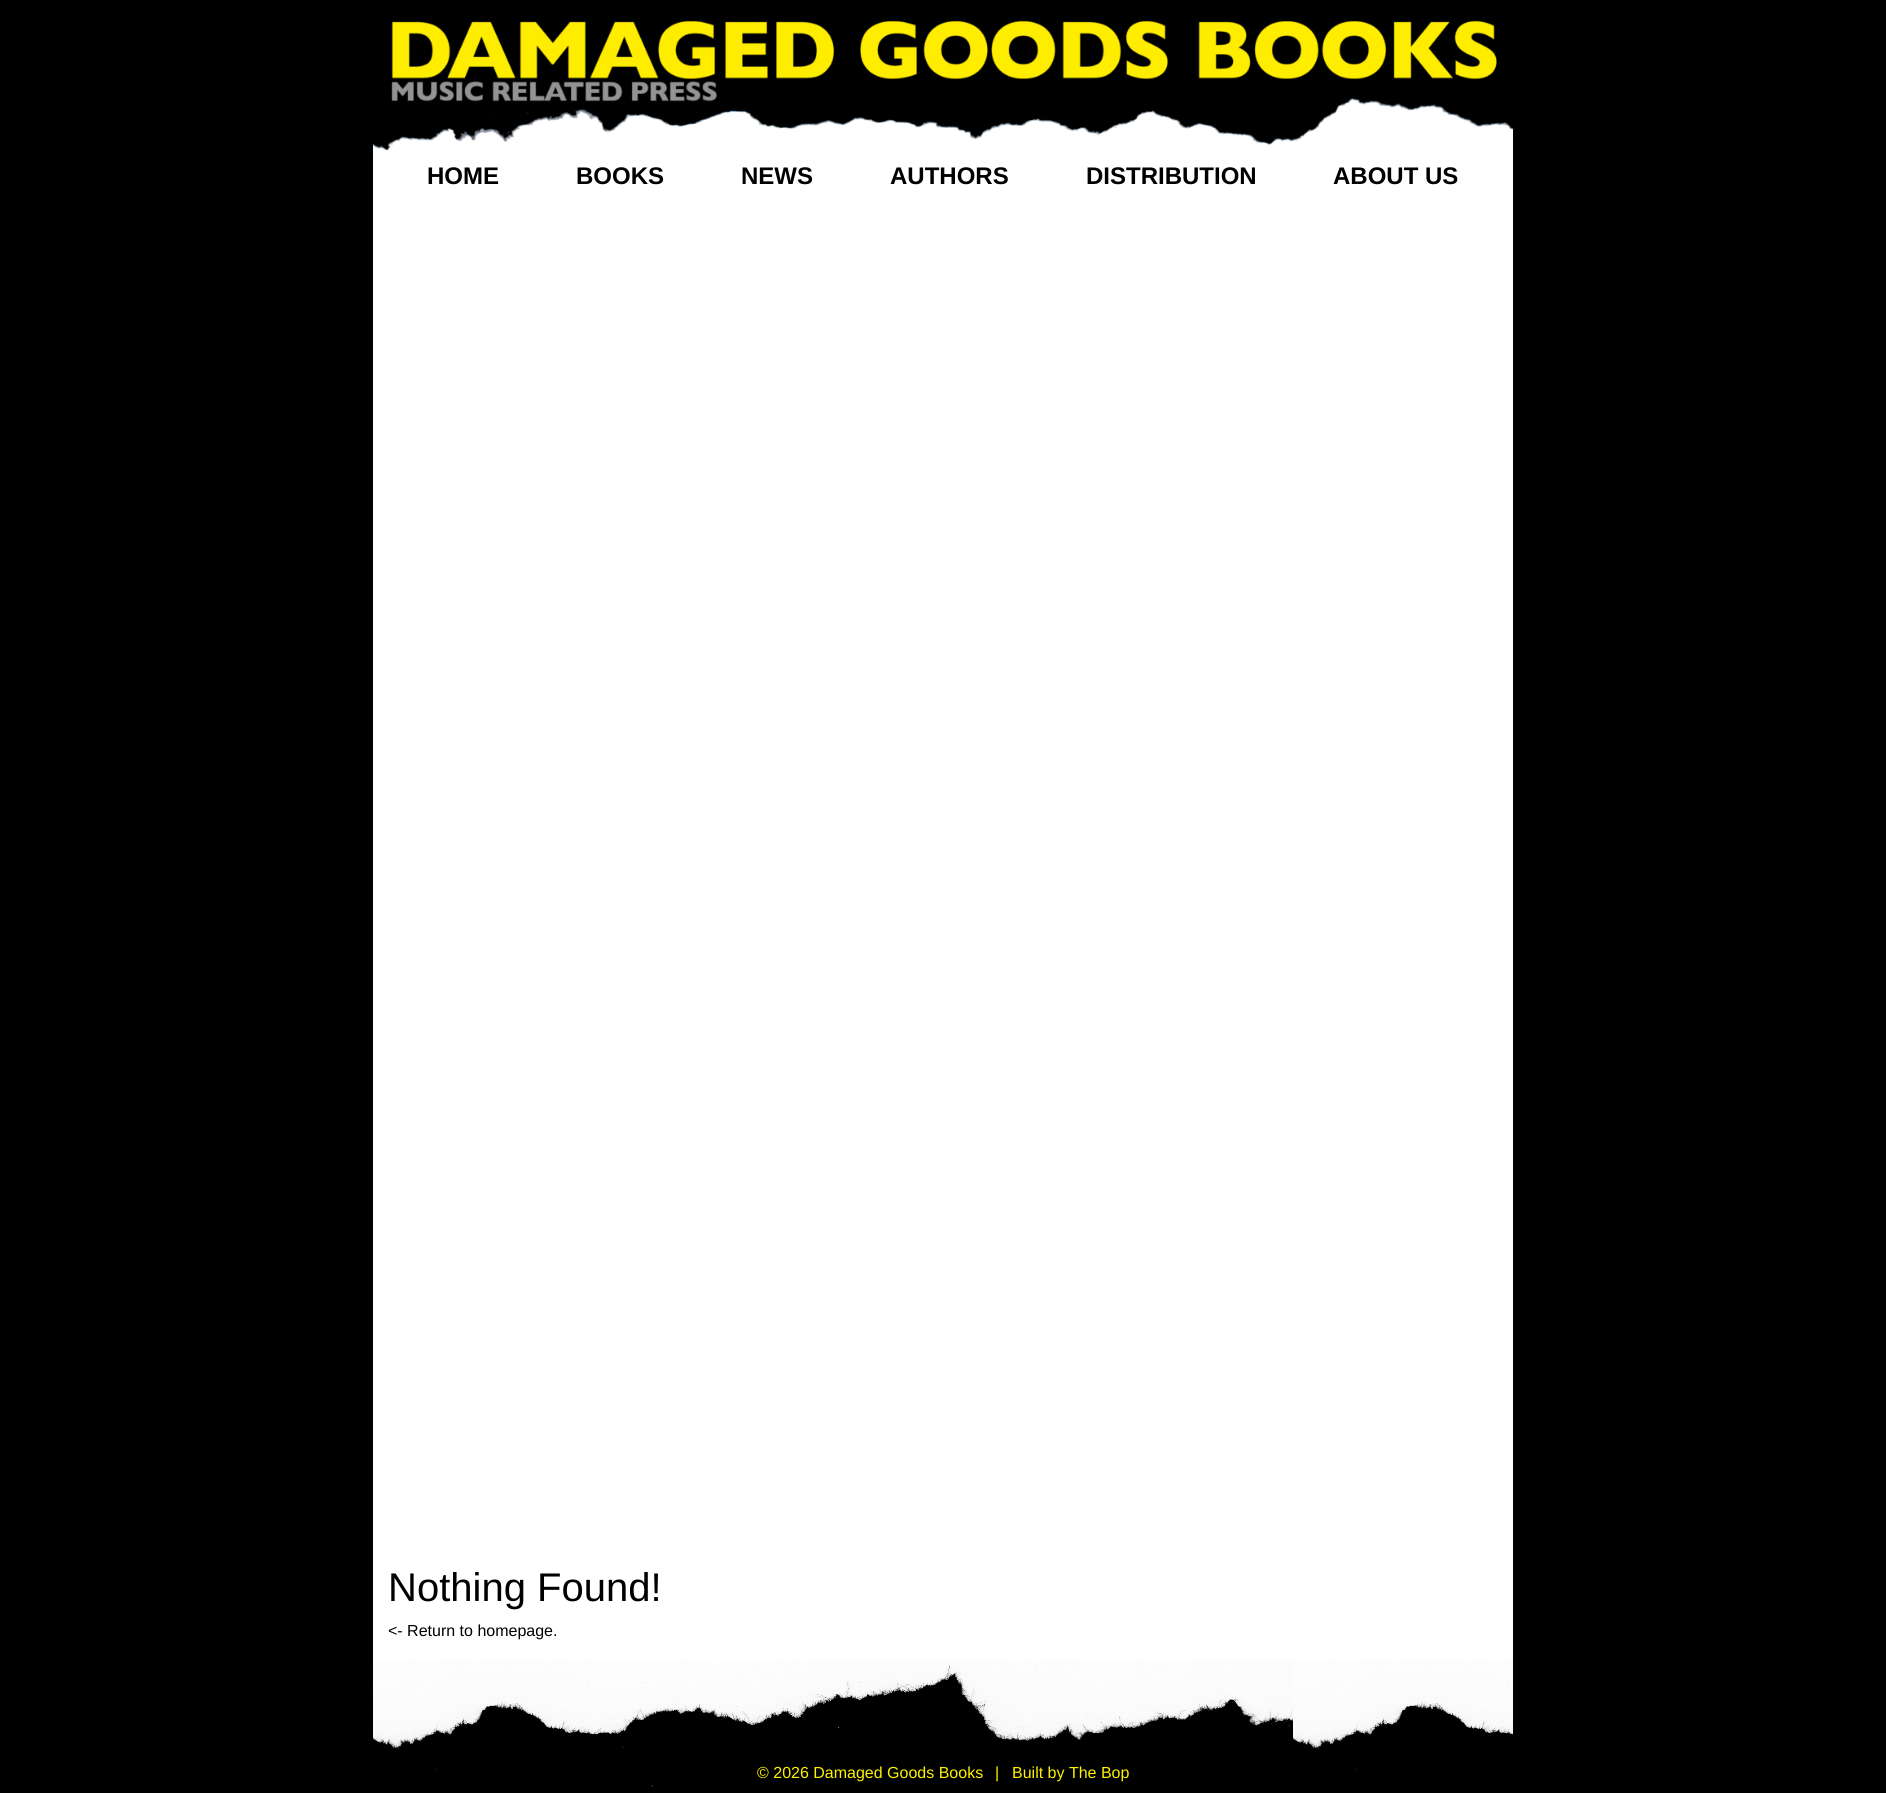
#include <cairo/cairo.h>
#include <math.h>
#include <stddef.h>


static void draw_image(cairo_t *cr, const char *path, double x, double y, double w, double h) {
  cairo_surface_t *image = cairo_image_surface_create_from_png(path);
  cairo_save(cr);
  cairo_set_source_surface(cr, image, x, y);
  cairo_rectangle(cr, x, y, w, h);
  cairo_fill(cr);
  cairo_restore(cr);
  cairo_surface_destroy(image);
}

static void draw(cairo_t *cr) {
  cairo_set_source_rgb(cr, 0, 0, 0);
  cairo_paint(cr);
  cairo_set_source_rgb(cr, 1, 1, 1);
  cairo_rectangle(cr, 373, 98, 1140, 1545);
  cairo_fill(cr);
  draw_image(cr, "images/1.png", 373, 0, 1140, 151);
  draw_image(cr, "images/2.png", 373, 1643, 1140, 148);
  cairo_select_font_face(cr, "Liberation Sans", CAIRO_FONT_SLANT_NORMAL, CAIRO_FONT_WEIGHT_BOLD);
  cairo_set_font_size(cr, 24);
  cairo_set_source_rgb(cr, 0, 0, 0);
  cairo_move_to(cr, 427, 184);
  cairo_show_text(cr, "HOME");
  cairo_move_to(cr, 576, 184);
  cairo_show_text(cr, "BOOKS");
  cairo_move_to(cr, 741, 184);
  cairo_show_text(cr, "NEWS");
  cairo_move_to(cr, 890, 184);
  cairo_show_text(cr, "AUTHORS");
  cairo_move_to(cr, 1086, 184);
  cairo_show_text(cr, "DISTRIBUTION");
  cairo_move_to(cr, 1333, 184);
  cairo_show_text(cr, "ABOUT US");
  cairo_select_font_face(cr, "Liberation Sans", CAIRO_FONT_SLANT_NORMAL, CAIRO_FONT_WEIGHT_NORMAL);
  cairo_set_font_size(cr, 40);
  cairo_move_to(cr, 388, 1601);
  cairo_show_text(cr, "Nothing Found!");
  cairo_set_font_size(cr, 16);
  cairo_move_to(cr, 388, 1636);
  cairo_show_text(cr, "<- Return to homepage.");
  cairo_set_source_rgb(cr, 254 / 255.0, 242 / 255.0, 0);
  cairo_move_to(cr, 757, 1778);
  cairo_show_text(cr, "© 2026 Damaged Goods Books");
  cairo_move_to(cr, 995, 1778);
  cairo_show_text(cr, "|");
  cairo_move_to(cr, 1012, 1778);
  cairo_show_text(cr, "Built by The Bop");
}

int main(void) {
  cairo_surface_t *surface = cairo_image_surface_create(CAIRO_FORMAT_RGB24, 1886, 1793);
  cairo_t *cr = cairo_create(surface);
  cairo_font_options_t *options = cairo_font_options_create();
  cairo_font_options_set_hint_metrics(options, CAIRO_HINT_METRICS_OFF);
  cairo_font_options_set_hint_style(options, CAIRO_HINT_STYLE_NONE);
  cairo_set_font_options(cr, options);
  cairo_set_miter_limit(cr, 4);
  draw(cr);
  cairo_surface_write_to_png(surface, "out.png");
  cairo_font_options_destroy(options);
  cairo_destroy(cr);
  cairo_surface_destroy(surface);
  return 0;
}
